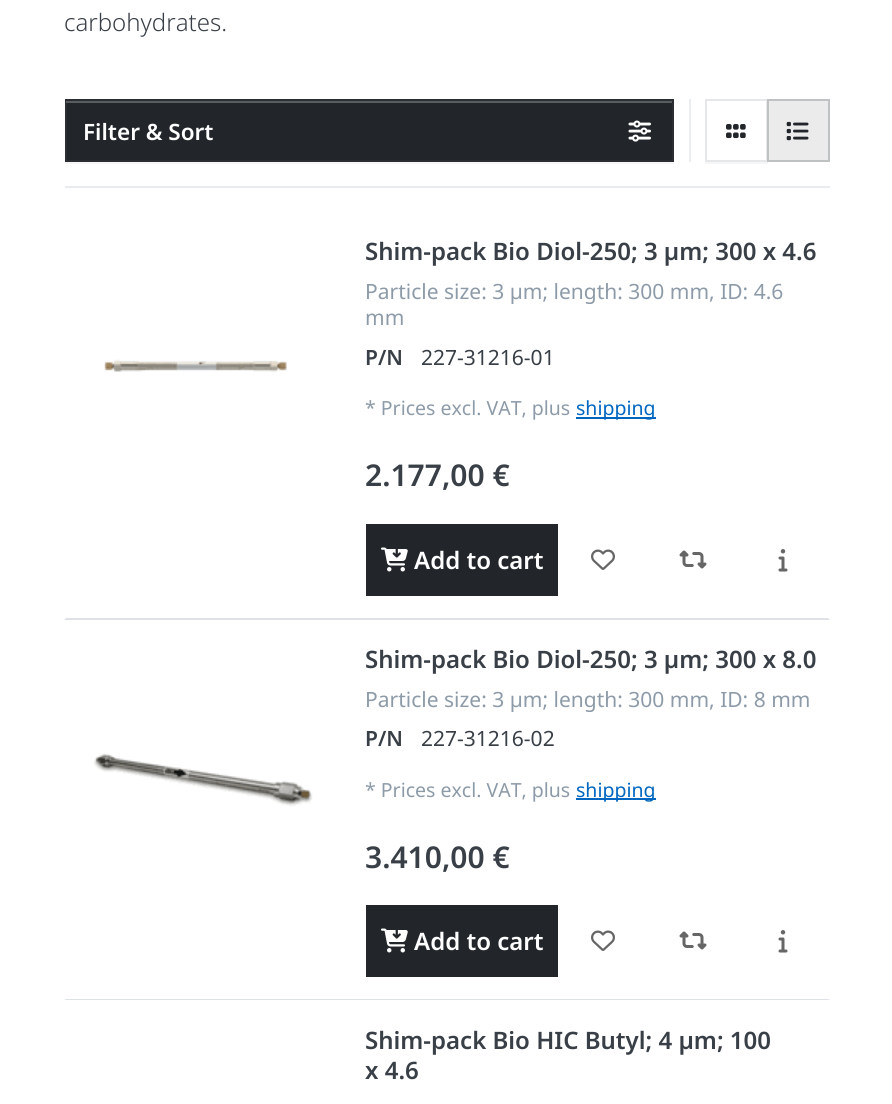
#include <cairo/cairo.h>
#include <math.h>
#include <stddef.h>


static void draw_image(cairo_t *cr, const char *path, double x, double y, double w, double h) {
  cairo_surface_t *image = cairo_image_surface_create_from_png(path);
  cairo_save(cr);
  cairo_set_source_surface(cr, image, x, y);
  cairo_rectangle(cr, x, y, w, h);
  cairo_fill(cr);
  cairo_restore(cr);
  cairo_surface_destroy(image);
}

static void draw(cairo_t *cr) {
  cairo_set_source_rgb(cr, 1, 1, 1);
  cairo_paint(cr);
  cairo_set_source_rgb(cr, 233 / 255.0, 236 / 255.0, 239 / 255.0);
  cairo_rectangle(cr, 65, 186, 765, 2);
  cairo_fill(cr);
  cairo_set_source_rgb(cr, 246 / 255.0, 246 / 255.0, 246 / 255.0);
  cairo_new_path(cr);
  cairo_move_to(cr, 65, 162);
  cairo_line_to(cr, 65, 164);
  cairo_line_to(cr, 674, 164);
  cairo_line_to(cr, 674, 101);
  cairo_line_to(cr, 674, 162);
  cairo_close_path(cr);
  cairo_fill(cr);
  cairo_set_source_rgb(cr, 34 / 255.0, 38 / 255.0, 42 / 255.0);
  cairo_rectangle(cr, 65, 99, 609, 63);
  cairo_fill(cr);
  cairo_set_source_rgb(cr, 89 / 255.0, 92 / 255.0, 95 / 255.0);
  cairo_rectangle(cr, 66, 101, 606, 2);
  cairo_fill(cr);
  cairo_rectangle(cr, 66, 100, 607, 61);
  cairo_set_source_rgba(cr, 89 / 255.0, 97 / 255.0, 103 / 255.0, 0.15);
  cairo_stroke(cr);
  draw_image(cr, "images/1.png", 628, 120, 23, 22);
  cairo_set_source_rgb(cr, 235 / 255.0, 238 / 255.0, 240 / 255.0);
  cairo_rectangle(cr, 689, 99, 2, 63);
  cairo_fill(cr);
  cairo_set_source_rgb(cr, 246 / 255.0, 246 / 255.0, 246 / 255.0);
  cairo_rectangle(cr, 705, 162, 63, 2);
  cairo_fill(cr);
  cairo_rectangle(cr, 706, 100, 61, 61);
  cairo_set_source_rgb(cr, 230 / 255.0, 231 / 255.0, 232 / 255.0);
  cairo_stroke(cr);
  draw_image(cr, "images/2.png", 726, 124, 20, 15);
  cairo_set_source_rgb(cr, 235 / 255.0, 235 / 255.0, 235 / 255.0);
  cairo_rectangle(cr, 768, 100, 61, 61);
  cairo_fill_preserve(cr);
  cairo_set_source_rgb(cr, 191 / 255.0, 194 / 255.0, 195 / 255.0);
  cairo_stroke(cr);
  draw_image(cr, "images/3.png", 786, 121, 23, 20);
  cairo_set_source_rgb(cr, 222 / 255.0, 226 / 255.0, 230 / 255.0);
  cairo_new_path(cr);
  cairo_move_to(cr, 830, 620);
  cairo_line_to(cr, 64, 620);
  cairo_line_to(cr, 66, 618);
  cairo_line_to(cr, 828, 618);
  cairo_close_path(cr);
  cairo_fill(cr);
  draw_image(cr, "images/4.png", 104, 359, 183, 13);
  cairo_set_source_rgb(cr, 0, 102 / 255.0, 192 / 255.0);
  cairo_rectangle(cr, 576, 417, 80, 2);
  cairo_fill(cr);
  cairo_set_source_rgb(cr, 34 / 255.0, 38 / 255.0, 42 / 255.0);
  cairo_rectangle(cr, 366, 524, 192, 72);
  cairo_fill(cr);
  draw_image(cr, "images/5.png", 381, 547, 27, 25);
  draw_image(cr, "images/6.png", 591, 549, 24, 21);
  draw_image(cr, "images/7.png", 679, 550, 28, 19);
  draw_image(cr, "images/8.png", 778, 549, 10, 23);
  cairo_set_source_rgb(cr, 222 / 255.0, 226 / 255.0, 230 / 255.0);
  cairo_new_path(cr);
  cairo_move_to(cr, 830, 1000);
  cairo_line_to(cr, 64, 1000);
  cairo_line_to(cr, 66, 999);
  cairo_line_to(cr, 828, 999);
  cairo_close_path(cr);
  cairo_fill(cr);
  draw_image(cr, "images/9.png", 93, 753, 220, 54);
  cairo_set_source_rgb(cr, 0, 102 / 255.0, 192 / 255.0);
  cairo_rectangle(cr, 576, 798, 80, 2);
  cairo_fill(cr);
  cairo_set_source_rgb(cr, 34 / 255.0, 38 / 255.0, 42 / 255.0);
  cairo_rectangle(cr, 366, 905, 192, 72);
  cairo_fill(cr);
  draw_image(cr, "images/5.png", 381, 928, 27, 25);
  draw_image(cr, "images/6.png", 591, 930, 24, 21);
  draw_image(cr, "images/7.png", 679, 931, 28, 19);
  draw_image(cr, "images/8.png", 778, 930, 10, 23);
  cairo_select_font_face(cr, "Noto Sans Light", CAIRO_FONT_SLANT_NORMAL, CAIRO_FONT_WEIGHT_NORMAL);
  cairo_set_font_size(cr, 24);
  cairo_set_source_rgb(cr, 57 / 255.0, 63 / 255.0, 70 / 255.0);
  cairo_move_to(cr, 64, 31);
  cairo_show_text(cr, "carbohydrates.");
  cairo_select_font_face(cr, "Noto Sans SemiBold", CAIRO_FONT_SLANT_NORMAL, CAIRO_FONT_WEIGHT_NORMAL);
  cairo_set_font_size(cr, 22.5);
  cairo_set_source_rgb(cr, 1, 1, 1);
  cairo_move_to(cr, 83, 140);
  cairo_show_text(cr, "Filter & Sort");
  cairo_set_font_size(cr, 24);
  cairo_set_source_rgb(cr, 57 / 255.0, 63 / 255.0, 70 / 255.0);
  cairo_move_to(cr, 365, 260);
  cairo_show_text(cr, "Shim-pack Bio Diol-250; 3 µm; 300 x 4.6");
  cairo_select_font_face(cr, "Noto Sans", CAIRO_FONT_SLANT_NORMAL, CAIRO_FONT_WEIGHT_NORMAL);
  cairo_set_font_size(cr, 21);
  cairo_set_source_rgb(cr, 141 / 255.0, 155 / 255.0, 169 / 255.0);
  cairo_move_to(cr, 365, 299);
  cairo_show_text(cr, "Particle size: 3 µm; length: 300 mm, ID: 4.6");
  cairo_move_to(cr, 365, 325);
  cairo_show_text(cr, "mm");
  cairo_select_font_face(cr, "Noto Sans SemiBold", CAIRO_FONT_SLANT_NORMAL, CAIRO_FONT_WEIGHT_NORMAL);
  cairo_set_source_rgb(cr, 57 / 255.0, 63 / 255.0, 70 / 255.0);
  cairo_move_to(cr, 365, 365);
  cairo_show_text(cr, "P/N");
  cairo_select_font_face(cr, "Noto Sans", CAIRO_FONT_SLANT_NORMAL, CAIRO_FONT_WEIGHT_NORMAL);
  cairo_move_to(cr, 421, 365);
  cairo_show_text(cr, "227-31216-01");
  cairo_set_font_size(cr, 19.5);
  cairo_set_source_rgb(cr, 141 / 255.0, 155 / 255.0, 169 / 255.0);
  cairo_move_to(cr, 365, 415);
  cairo_show_text(cr, "* Prices excl. VAT, plus");
  cairo_set_source_rgb(cr, 0, 102 / 255.0, 192 / 255.0);
  cairo_move_to(cr, 576, 415);
  cairo_show_text(cr, "shipping");
  cairo_select_font_face(cr, "Noto Sans SemiBold", CAIRO_FONT_SLANT_NORMAL, CAIRO_FONT_WEIGHT_NORMAL);
  cairo_set_font_size(cr, 30);
  cairo_set_source_rgb(cr, 57 / 255.0, 63 / 255.0, 70 / 255.0);
  cairo_move_to(cr, 365, 486);
  cairo_show_text(cr, "2.177,00 €");
  cairo_set_font_size(cr, 24);
  cairo_set_source_rgb(cr, 1, 1, 1);
  cairo_move_to(cr, 414, 569);
  cairo_show_text(cr, "Add to cart");
  cairo_set_source_rgb(cr, 57 / 255.0, 63 / 255.0, 70 / 255.0);
  cairo_move_to(cr, 365, 668);
  cairo_show_text(cr, "Shim-pack Bio Diol-250; 3 µm; 300 x 8.0");
  cairo_select_font_face(cr, "Noto Sans", CAIRO_FONT_SLANT_NORMAL, CAIRO_FONT_WEIGHT_NORMAL);
  cairo_set_font_size(cr, 21);
  cairo_set_source_rgb(cr, 141 / 255.0, 155 / 255.0, 169 / 255.0);
  cairo_move_to(cr, 365, 707);
  cairo_show_text(cr, "Particle size: 3 µm; length: 300 mm, ID: 8 mm");
  cairo_select_font_face(cr, "Noto Sans SemiBold", CAIRO_FONT_SLANT_NORMAL, CAIRO_FONT_WEIGHT_NORMAL);
  cairo_set_source_rgb(cr, 57 / 255.0, 63 / 255.0, 70 / 255.0);
  cairo_move_to(cr, 365, 746);
  cairo_show_text(cr, "P/N");
  cairo_select_font_face(cr, "Noto Sans", CAIRO_FONT_SLANT_NORMAL, CAIRO_FONT_WEIGHT_NORMAL);
  cairo_move_to(cr, 421, 746);
  cairo_show_text(cr, "227-31216-02");
  cairo_set_font_size(cr, 19.5);
  cairo_set_source_rgb(cr, 141 / 255.0, 155 / 255.0, 169 / 255.0);
  cairo_move_to(cr, 365, 797);
  cairo_show_text(cr, "* Prices excl. VAT, plus");
  cairo_set_source_rgb(cr, 0, 102 / 255.0, 192 / 255.0);
  cairo_move_to(cr, 576, 797);
  cairo_show_text(cr, "shipping");
  cairo_select_font_face(cr, "Noto Sans SemiBold", CAIRO_FONT_SLANT_NORMAL, CAIRO_FONT_WEIGHT_NORMAL);
  cairo_set_font_size(cr, 30);
  cairo_set_source_rgb(cr, 57 / 255.0, 63 / 255.0, 70 / 255.0);
  cairo_move_to(cr, 365, 868);
  cairo_show_text(cr, "3.410,00 €");
  cairo_set_font_size(cr, 24);
  cairo_set_source_rgb(cr, 1, 1, 1);
  cairo_move_to(cr, 414, 950);
  cairo_show_text(cr, "Add to cart");
  cairo_set_source_rgb(cr, 57 / 255.0, 63 / 255.0, 70 / 255.0);
  cairo_move_to(cr, 365, 1049);
  cairo_show_text(cr, "Shim-pack Bio HIC Butyl; 4 µm; 100");
  cairo_move_to(cr, 365, 1079);
  cairo_show_text(cr, "x 4.6");
}

int main(void) {
  cairo_surface_t *surface = cairo_image_surface_create(CAIRO_FORMAT_RGB24, 892, 1104);
  cairo_t *cr = cairo_create(surface);
  cairo_font_options_t *options = cairo_font_options_create();
  cairo_font_options_set_hint_metrics(options, CAIRO_HINT_METRICS_OFF);
  cairo_font_options_set_hint_style(options, CAIRO_HINT_STYLE_NONE);
  cairo_set_font_options(cr, options);
  cairo_set_miter_limit(cr, 4);
  draw(cr);
  cairo_surface_write_to_png(surface, "out.png");
  cairo_font_options_destroy(options);
  cairo_destroy(cr);
  cairo_surface_destroy(surface);
  return 0;
}
